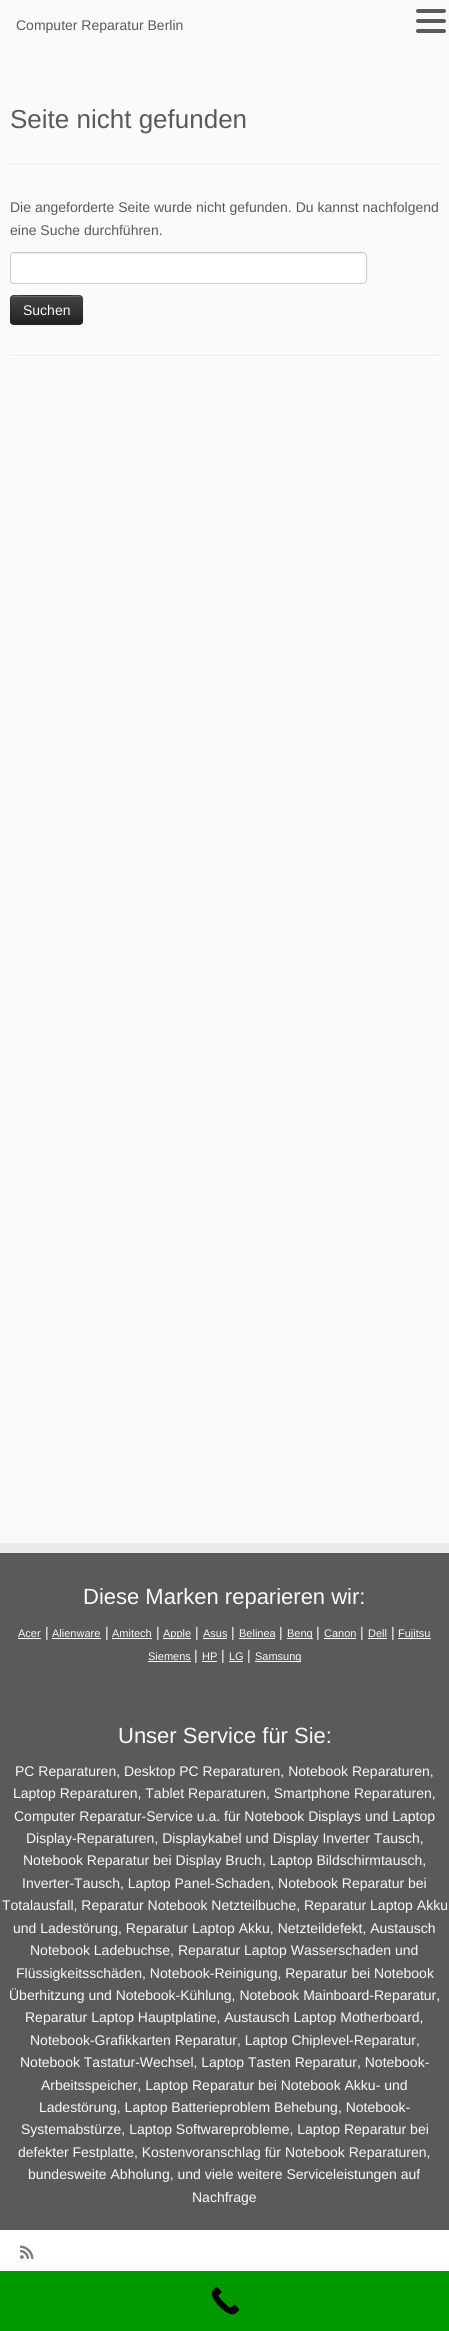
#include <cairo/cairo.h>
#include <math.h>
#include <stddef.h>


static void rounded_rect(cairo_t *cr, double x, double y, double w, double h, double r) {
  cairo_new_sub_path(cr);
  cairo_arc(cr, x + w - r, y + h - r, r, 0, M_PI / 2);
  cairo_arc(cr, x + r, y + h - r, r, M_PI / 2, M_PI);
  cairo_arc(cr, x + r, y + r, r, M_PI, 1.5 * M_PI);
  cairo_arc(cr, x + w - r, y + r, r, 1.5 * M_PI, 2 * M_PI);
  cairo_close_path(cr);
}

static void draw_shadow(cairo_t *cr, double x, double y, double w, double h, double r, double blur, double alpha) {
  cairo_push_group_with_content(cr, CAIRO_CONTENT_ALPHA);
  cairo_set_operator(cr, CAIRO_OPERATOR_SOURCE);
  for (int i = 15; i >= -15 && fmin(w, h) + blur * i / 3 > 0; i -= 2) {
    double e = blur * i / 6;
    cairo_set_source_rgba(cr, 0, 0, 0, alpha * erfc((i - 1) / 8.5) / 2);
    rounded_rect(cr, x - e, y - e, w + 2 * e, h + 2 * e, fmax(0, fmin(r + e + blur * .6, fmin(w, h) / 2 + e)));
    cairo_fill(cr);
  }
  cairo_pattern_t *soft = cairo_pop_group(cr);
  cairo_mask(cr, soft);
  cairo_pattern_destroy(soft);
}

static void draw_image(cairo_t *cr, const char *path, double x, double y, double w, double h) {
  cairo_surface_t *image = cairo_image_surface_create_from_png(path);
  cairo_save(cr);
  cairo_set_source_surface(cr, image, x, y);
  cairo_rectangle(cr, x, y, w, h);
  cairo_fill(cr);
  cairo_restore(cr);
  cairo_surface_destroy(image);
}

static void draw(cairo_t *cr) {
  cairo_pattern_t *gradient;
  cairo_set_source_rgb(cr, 250 / 255.0, 250 / 255.0, 250 / 255.0);
  cairo_paint(cr);
  cairo_set_source_rgb(cr, 90 / 255.0, 90 / 255.0, 90 / 255.0);
  rounded_rect(cr, 416, 9, 30, 4, 2);
  cairo_fill(cr);
  rounded_rect(cr, 416, 19, 30, 4, 2);
  cairo_fill(cr);
  rounded_rect(cr, 416, 29, 30, 4, 2);
  cairo_fill(cr);
  cairo_set_source_rgb(cr, 238 / 255.0, 238 / 255.0, 238 / 255.0);
  cairo_rectangle(cr, 10, 164, 429, 1);
  cairo_fill(cr);
  cairo_set_source_rgb(cr, 1, 1, 1);
  cairo_rectangle(cr, 10, 165, 429, 1);
  cairo_fill(cr);
  rounded_rect(cr, 10, 252, 357, 32, 4);
  cairo_fill(cr);
  cairo_set_source_rgb(cr, 236 / 255.0, 236 / 255.0, 236 / 255.0);
  cairo_new_path(cr);
  cairo_move_to(cr, 14, 254);
  cairo_line_to(cr, 363, 254);
  cairo_curve_to(cr, 365, 254, 366, 255, 366, 257);
  cairo_curve_to(cr, 366, 255, 365, 253, 363, 253);
  cairo_line_to(cr, 14, 253);
  cairo_line_to(cr, 12, 254);
  cairo_line_to(cr, 11, 257);
  cairo_curve_to(cr, 11, 255, 12, 254, 14, 254);
  cairo_close_path(cr);
  cairo_fill(cr);
  rounded_rect(cr, 10.5, 252.5, 356, 31, 3.5);
  cairo_set_source_rgb(cr, 204 / 255.0, 204 / 255.0, 204 / 255.0);
  cairo_set_line_width(cr, 1);
  cairo_stroke(cr);
  cairo_set_source_rgb(cr, 0, 0, 0);
  draw_shadow(cr, 10, 296, 73, 30, 4, 1, 0.05);
  cairo_set_source_rgb(cr, 54 / 255.0, 54 / 255.0, 54 / 255.0);
  rounded_rect(cr, 10, 295, 73, 30, 4);
  cairo_fill(cr);
  cairo_save(cr);
  rounded_rect(cr, 10, 295, 73, 30, 4);
  cairo_clip(cr);
  gradient = cairo_pattern_create_linear(47, 296, 47, 324);
  cairo_pattern_add_color_stop_rgba(gradient, 0, 68 / 255.0, 68 / 255.0, 68 / 255.0, 1);
  cairo_pattern_add_color_stop_rgba(gradient, 1, 34 / 255.0, 34 / 255.0, 34 / 255.0, 1);
  cairo_set_source(cr, gradient);
  cairo_pattern_destroy(gradient);
  cairo_rectangle(cr, 10, 296, 73, 28);
  cairo_fill(cr);
  cairo_restore(cr);
  cairo_set_source_rgba(cr, 1, 1, 1, 0.2);
  cairo_new_path(cr);
  cairo_move_to(cr, 14, 297);
  cairo_line_to(cr, 79, 297);
  cairo_curve_to(cr, 81, 297, 82, 298, 82, 300);
  cairo_curve_to(cr, 82, 293, 72, 296, 68, 296);
  cairo_line_to(cr, 25, 296);
  cairo_curve_to(cr, 21, 296, 11, 293, 11, 300);
  cairo_curve_to(cr, 11, 298, 12, 297, 14, 297);
  cairo_close_path(cr);
  cairo_fill(cr);
  cairo_new_path(cr);
  cairo_move_to(cr, 81.5, 323.5);
  cairo_line_to(cr, 79.5, 324.5);
  cairo_line_to(cr, 13.5, 324.5);
  cairo_line_to(cr, 11.5, 323.5);
  cairo_set_source_rgba(cr, 0, 0, 0, 0.25);
  cairo_stroke(cr);
  cairo_new_path(cr);
  cairo_move_to(cr, 11.5, 323.5);
  cairo_curve_to(cr, 9.5, 321.5, 10.5, 313, 10.5, 310);
  cairo_curve_to(cr, 10.5, 293.5, 8, 295.5, 25, 295.5);
  cairo_line_to(cr, 68, 295.5);
  cairo_curve_to(cr, 85, 295.5, 82.5, 293.5, 82.5, 310);
  cairo_curve_to(cr, 82.5, 313, 83.5, 321.5, 81.5, 323.5);
  cairo_set_source_rgba(cr, 0, 0, 0, 0.1);
  cairo_stroke(cr);
  cairo_set_source_rgb(cr, 238 / 255.0, 238 / 255.0, 238 / 255.0);
  cairo_rectangle(cr, 10, 355, 429, 1);
  cairo_fill(cr);
  cairo_set_source_rgb(cr, 1, 1, 1);
  cairo_rectangle(cr, 10, 356, 429, 1);
  cairo_fill(cr);
  cairo_set_source_rgb(cr, 90 / 255.0, 90 / 255.0, 90 / 255.0);
  cairo_rectangle(cr, 0, 1553, 449, 677);
  cairo_fill(cr);
  cairo_set_source_rgb(cr, 233 / 255.0, 234 / 255.0, 238 / 255.0);
  cairo_rectangle(cr, 0, 1543, 449, 10);
  cairo_fill(cr);
  cairo_set_source_rgb(cr, 250 / 255.0, 250 / 255.0, 250 / 255.0);
  cairo_rectangle(cr, 18, 1638, 23, 1);
  cairo_fill(cr);
  cairo_rectangle(cr, 52, 1638, 49, 1);
  cairo_fill(cr);
  cairo_rectangle(cr, 112, 1638, 40, 1);
  cairo_fill(cr);
  cairo_rectangle(cr, 163, 1638, 28, 1);
  cairo_fill(cr);
  cairo_rectangle(cr, 203, 1638, 24, 1);
  cairo_fill(cr);
  cairo_rectangle(cr, 239, 1638, 36, 1);
  cairo_fill(cr);
  cairo_rectangle(cr, 287, 1638, 26, 1);
  cairo_fill(cr);
  cairo_rectangle(cr, 324, 1638, 32, 1);
  cairo_fill(cr);
  cairo_rectangle(cr, 368, 1638, 19, 1);
  cairo_fill(cr);
  cairo_rectangle(cr, 398, 1638, 33, 1);
  cairo_fill(cr);
  cairo_rectangle(cr, 148, 1661, 43, 1);
  cairo_fill(cr);
  cairo_rectangle(cr, 202, 1661, 15, 1);
  cairo_fill(cr);
  cairo_rectangle(cr, 229, 1661, 14, 1);
  cairo_fill(cr);
  cairo_rectangle(cr, 255, 1661, 46, 1);
  cairo_fill(cr);
  cairo_set_source_rgb(cr, 1, 1, 1);
  cairo_rectangle(cr, 0, 2230, 449, 41);
  cairo_fill(cr);
  draw_image(cr, "images/1.png", 20, 2245, 14, 14);
  cairo_set_source_rgb(cr, 0, 153 / 255.0, 0);
  cairo_rectangle(cr, 0, 2271, 449, 60);
  cairo_fill(cr);
  draw_image(cr, "images/2.png", 211, 2287, 29, 28);
  cairo_select_font_face(cr, "Liberation Sans", CAIRO_FONT_SLANT_NORMAL, CAIRO_FONT_WEIGHT_NORMAL);
  cairo_set_font_size(cr, 14);
  cairo_set_source_rgb(cr, 90 / 255.0, 90 / 255.0, 90 / 255.0);
  cairo_move_to(cr, 16, 30);
  cairo_show_text(cr, "Computer Reparatur Berlin");
  cairo_set_font_size(cr, 26);
  cairo_move_to(cr, 10, 128);
  cairo_show_text(cr, "Seite nicht gefunden");
  cairo_set_font_size(cr, 14);
  cairo_move_to(cr, 10, 212);
  cairo_show_text(cr, "Die angeforderte Seite wurde nicht gefunden. Du kannst nachfolgend");
  cairo_move_to(cr, 10, 235);
  cairo_show_text(cr, "eine Suche durchführen.");
  cairo_set_source_rgb(cr, 250 / 255.0, 250 / 255.0, 250 / 255.0);
  cairo_move_to(cr, 23, 315);
  cairo_show_text(cr, "Suchen");
  cairo_set_font_size(cr, 22);
  cairo_move_to(cr, 83, 1604);
  cairo_show_text(cr, "Diese Marken reparieren wir:");
  cairo_set_font_size(cr, 11);
  cairo_move_to(cr, 18, 1637);
  cairo_show_text(cr, "Acer");
  cairo_set_font_size(cr, 14);
  cairo_move_to(cr, 45, 1637);
  cairo_show_text(cr, "|");
  cairo_set_font_size(cr, 11);
  cairo_move_to(cr, 52, 1637);
  cairo_show_text(cr, "Alienware");
  cairo_set_font_size(cr, 14);
  cairo_move_to(cr, 105, 1637);
  cairo_show_text(cr, "|");
  cairo_set_font_size(cr, 11);
  cairo_move_to(cr, 112, 1637);
  cairo_show_text(cr, "Amitech");
  cairo_set_font_size(cr, 14);
  cairo_move_to(cr, 156, 1637);
  cairo_show_text(cr, "|");
  cairo_set_font_size(cr, 11);
  cairo_move_to(cr, 163, 1637);
  cairo_show_text(cr, "Apple");
  cairo_set_font_size(cr, 14);
  cairo_move_to(cr, 195, 1637);
  cairo_show_text(cr, "|");
  cairo_set_font_size(cr, 11);
  cairo_move_to(cr, 203, 1637);
  cairo_show_text(cr, "Asus");
  cairo_set_font_size(cr, 14);
  cairo_move_to(cr, 231, 1637);
  cairo_show_text(cr, "|");
  cairo_set_font_size(cr, 11);
  cairo_move_to(cr, 239, 1637);
  cairo_show_text(cr, "Belinea");
  cairo_set_font_size(cr, 14);
  cairo_move_to(cr, 279, 1637);
  cairo_show_text(cr, "|");
  cairo_set_font_size(cr, 11);
  cairo_move_to(cr, 287, 1637);
  cairo_show_text(cr, "Benq");
  cairo_set_font_size(cr, 14);
  cairo_move_to(cr, 316, 1637);
  cairo_show_text(cr, "|");
  cairo_set_font_size(cr, 11);
  cairo_move_to(cr, 324, 1637);
  cairo_show_text(cr, "Canon");
  cairo_set_font_size(cr, 14);
  cairo_move_to(cr, 360, 1637);
  cairo_show_text(cr, "|");
  cairo_set_font_size(cr, 11);
  cairo_move_to(cr, 368, 1637);
  cairo_show_text(cr, "Dell");
  cairo_set_font_size(cr, 14);
  cairo_move_to(cr, 391, 1637);
  cairo_show_text(cr, "|");
  cairo_set_font_size(cr, 11);
  cairo_move_to(cr, 398, 1637);
  cairo_show_text(cr, "Fujitsu");
  cairo_move_to(cr, 148, 1660);
  cairo_show_text(cr, "Siemens");
  cairo_set_font_size(cr, 14);
  cairo_move_to(cr, 194, 1660);
  cairo_show_text(cr, "|");
  cairo_set_font_size(cr, 11);
  cairo_move_to(cr, 202, 1660);
  cairo_show_text(cr, "HP");
  cairo_set_font_size(cr, 14);
  cairo_move_to(cr, 221, 1660);
  cairo_show_text(cr, "|");
  cairo_set_font_size(cr, 11);
  cairo_move_to(cr, 229, 1660);
  cairo_show_text(cr, "LG");
  cairo_set_font_size(cr, 14);
  cairo_move_to(cr, 247, 1660);
  cairo_show_text(cr, "|");
  cairo_set_font_size(cr, 11);
  cairo_move_to(cr, 255, 1660);
  cairo_show_text(cr, "Samsung");
  cairo_set_font_size(cr, 22);
  cairo_move_to(cr, 118, 1743);
  cairo_show_text(cr, "Unser Service für Sie:");
  cairo_set_font_size(cr, 14);
  cairo_move_to(cr, 15, 1776);
  cairo_show_text(cr, "PC Reparaturen, Desktop PC Reparaturen, Notebook Reparaturen,");
  cairo_move_to(cr, 13, 1798);
  cairo_show_text(cr, "Laptop Reparaturen, Tablet Reparaturen, Smartphone Reparaturen,");
  cairo_move_to(cr, 14, 1821);
  cairo_show_text(cr, "Computer Reparatur-Service u.a. für Notebook Displays und Laptop");
  cairo_move_to(cr, 26, 1843);
  cairo_show_text(cr, "Display-Reparaturen, Displaykabel und Display Inverter Tausch,");
  cairo_move_to(cr, 23, 1865);
  cairo_show_text(cr, "Notebook Reparatur bei Display Bruch, Laptop Bildschirmtausch,");
  cairo_move_to(cr, 22, 1888);
  cairo_show_text(cr, "Inverter-Tausch, Laptop Panel-Schaden, Notebook Reparatur bei");
  cairo_move_to(cr, 2, 1910);
  cairo_show_text(cr, "Totalausfall, Reparatur Notebook Netzteilbuche, Reparatur Laptop Akku");
  cairo_move_to(cr, 13, 1933);
  cairo_show_text(cr, "und Ladestörung, Reparatur Laptop Akku, Netzteildefekt, Austausch");
  cairo_move_to(cr, 30, 1955);
  cairo_show_text(cr, "Notebook Ladebuchse, Reparatur Laptop Wasserschaden und");
  cairo_move_to(cr, 16, 1978);
  cairo_show_text(cr, "Flüssigkeitsschäden, Notebook-Reinigung, Reparatur bei Notebook");
  cairo_move_to(cr, 9, 2000);
  cairo_show_text(cr, "Überhitzung und Notebook-Kühlung, Notebook Mainboard-Reparatur,");
  cairo_move_to(cr, 25, 2022);
  cairo_show_text(cr, "Reparatur Laptop Hauptplatine, Austausch Laptop Motherboard,");
  cairo_move_to(cr, 30, 2045);
  cairo_show_text(cr, "Notebook-Grafikkarten Reparatur, Laptop Chiplevel-Reparatur,");
  cairo_move_to(cr, 20, 2067);
  cairo_show_text(cr, "Notebook Tastatur-Wechsel, Laptop Tasten Reparatur, Notebook-");
  cairo_move_to(cr, 41, 2090);
  cairo_show_text(cr, "Arbeitsspeicher, Laptop Reparatur bei Notebook Akku- und");
  cairo_move_to(cr, 39, 2112);
  cairo_show_text(cr, "Ladestörung, Laptop Batterieproblem Behebung, Notebook-");
  cairo_move_to(cr, 21, 2134);
  cairo_show_text(cr, "Systemabstürze, Laptop Softwareprobleme, Laptop Reparatur bei");
  cairo_move_to(cr, 18, 2157);
  cairo_show_text(cr, "defekter Festplatte, Kostenvoranschlag für Notebook Reparaturen,");
  cairo_move_to(cr, 28, 2179);
  cairo_show_text(cr, "bundesweite Abholung, und viele weitere Serviceleistungen auf");
  cairo_move_to(cr, 192, 2202);
  cairo_show_text(cr, "Nachfrage");
}

int main(void) {
  cairo_surface_t *surface = cairo_image_surface_create(CAIRO_FORMAT_RGB24, 449, 2331);
  cairo_t *cr = cairo_create(surface);
  cairo_font_options_t *options = cairo_font_options_create();
  cairo_font_options_set_hint_metrics(options, CAIRO_HINT_METRICS_OFF);
  cairo_font_options_set_hint_style(options, CAIRO_HINT_STYLE_NONE);
  cairo_set_font_options(cr, options);
  cairo_set_miter_limit(cr, 4);
  draw(cr);
  cairo_surface_write_to_png(surface, "out.png");
  cairo_font_options_destroy(options);
  cairo_destroy(cr);
  cairo_surface_destroy(surface);
  return 0;
}
